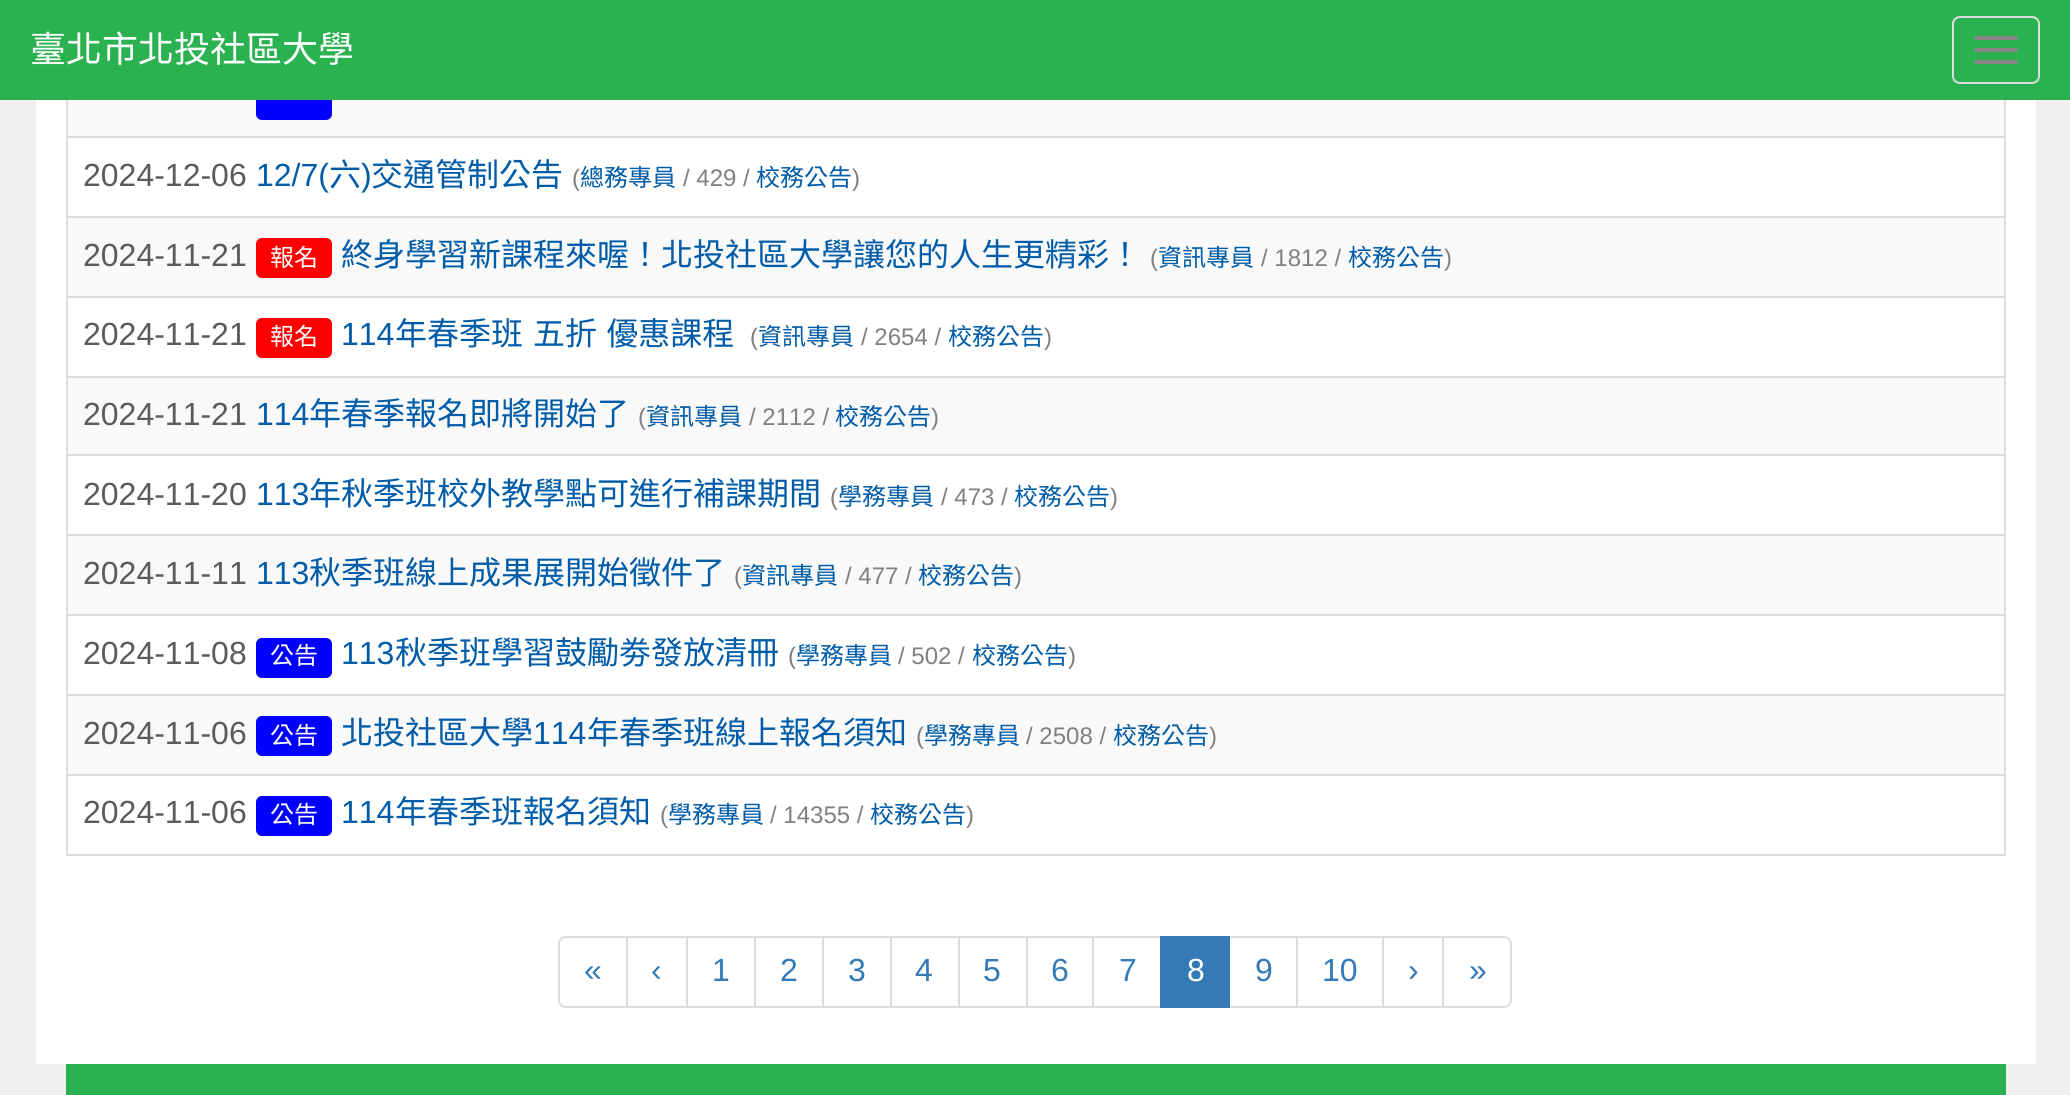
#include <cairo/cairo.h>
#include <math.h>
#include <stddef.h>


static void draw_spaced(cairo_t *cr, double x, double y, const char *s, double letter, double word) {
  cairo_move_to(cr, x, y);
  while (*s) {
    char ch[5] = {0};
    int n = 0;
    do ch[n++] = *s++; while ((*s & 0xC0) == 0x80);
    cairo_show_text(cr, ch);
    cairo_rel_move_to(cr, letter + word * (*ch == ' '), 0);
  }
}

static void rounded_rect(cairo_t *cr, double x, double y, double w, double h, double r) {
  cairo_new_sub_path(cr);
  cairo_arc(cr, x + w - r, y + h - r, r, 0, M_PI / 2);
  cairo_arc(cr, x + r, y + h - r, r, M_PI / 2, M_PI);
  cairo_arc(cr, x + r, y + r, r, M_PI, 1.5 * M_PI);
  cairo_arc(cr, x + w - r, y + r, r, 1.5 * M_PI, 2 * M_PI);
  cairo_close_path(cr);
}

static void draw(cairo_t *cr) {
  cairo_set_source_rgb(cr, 240 / 255.0, 240 / 255.0, 240 / 255.0);
  cairo_paint(cr);
  cairo_set_source_rgb(cr, 1, 1, 1);
  cairo_rectangle(cr, 36, 100, 2000, 964);
  cairo_fill(cr);
  cairo_set_source_rgb(cr, 249 / 255.0, 249 / 255.0, 249 / 255.0);
  cairo_rectangle(cr, 68, 100, 1936, 36);
  cairo_fill(cr);
  cairo_set_source_rgb(cr, 0, 0, 1);
  rounded_rect(cr, 256, 80, 76, 40, 6);
  cairo_fill(cr);
  cairo_set_source_rgb(cr, 42 / 255.0, 177 / 255.0, 80 / 255.0);
  cairo_rectangle(cr, 0, 0, 2070, 100);
  cairo_fill(cr);
  rounded_rect(cr, 1953, 17, 86, 66, 7);
  cairo_set_source_rgb(cr, 221 / 255.0, 221 / 255.0, 221 / 255.0);
  cairo_stroke(cr);
  cairo_set_source_rgb(cr, 136 / 255.0, 136 / 255.0, 136 / 255.0);
  rounded_rect(cr, 1974, 36, 44, 4, 2);
  cairo_fill(cr);
  rounded_rect(cr, 1974, 48, 44, 4, 2);
  cairo_fill(cr);
  rounded_rect(cr, 1974, 60, 44, 4, 2);
  cairo_fill(cr);
  cairo_set_source_rgb(cr, 221 / 255.0, 221 / 255.0, 221 / 255.0);
  cairo_rectangle(cr, 2004, 100, 2, 756);
  cairo_fill(cr);
  cairo_rectangle(cr, 66, 854, 1940, 2);
  cairo_fill(cr);
  cairo_rectangle(cr, 66, 100, 2, 756);
  cairo_fill(cr);
  cairo_rectangle(cr, 66, 136, 1940, 2);
  cairo_fill(cr);
  cairo_set_source_rgb(cr, 249 / 255.0, 249 / 255.0, 249 / 255.0);
  cairo_rectangle(cr, 68, 218, 1936, 78);
  cairo_fill(cr);
  cairo_set_source_rgb(cr, 221 / 255.0, 221 / 255.0, 221 / 255.0);
  cairo_rectangle(cr, 66, 216, 1940, 2);
  cairo_fill(cr);
  cairo_set_source_rgb(cr, 1, 0, 0);
  rounded_rect(cr, 256, 238, 76, 40, 6);
  cairo_fill(cr);
  cairo_set_source_rgb(cr, 221 / 255.0, 221 / 255.0, 221 / 255.0);
  cairo_rectangle(cr, 66, 296, 1940, 2);
  cairo_fill(cr);
  cairo_set_source_rgb(cr, 1, 0, 0);
  rounded_rect(cr, 256, 318, 76, 40, 6);
  cairo_fill(cr);
  cairo_set_source_rgb(cr, 249 / 255.0, 249 / 255.0, 249 / 255.0);
  cairo_rectangle(cr, 68, 378, 1936, 76);
  cairo_fill(cr);
  cairo_set_source_rgb(cr, 221 / 255.0, 221 / 255.0, 221 / 255.0);
  cairo_rectangle(cr, 66, 376, 1940, 2);
  cairo_fill(cr);
  cairo_rectangle(cr, 66, 454, 1940, 2);
  cairo_fill(cr);
  cairo_set_source_rgb(cr, 249 / 255.0, 249 / 255.0, 249 / 255.0);
  cairo_rectangle(cr, 68, 536, 1936, 78);
  cairo_fill(cr);
  cairo_set_source_rgb(cr, 221 / 255.0, 221 / 255.0, 221 / 255.0);
  cairo_rectangle(cr, 66, 534, 1940, 2);
  cairo_fill(cr);
  cairo_rectangle(cr, 66, 614, 1940, 2);
  cairo_fill(cr);
  cairo_set_source_rgb(cr, 0, 0, 1);
  rounded_rect(cr, 256, 638, 76, 40, 6);
  cairo_fill(cr);
  cairo_set_source_rgb(cr, 249 / 255.0, 249 / 255.0, 249 / 255.0);
  cairo_rectangle(cr, 68, 696, 1936, 78);
  cairo_fill(cr);
  cairo_set_source_rgb(cr, 221 / 255.0, 221 / 255.0, 221 / 255.0);
  cairo_rectangle(cr, 66, 694, 1940, 2);
  cairo_fill(cr);
  cairo_set_source_rgb(cr, 0, 0, 1);
  rounded_rect(cr, 256, 716, 76, 40, 6);
  cairo_fill(cr);
  cairo_set_source_rgb(cr, 221 / 255.0, 221 / 255.0, 221 / 255.0);
  cairo_rectangle(cr, 66, 774, 1940, 2);
  cairo_fill(cr);
  cairo_set_source_rgb(cr, 0, 0, 1);
  rounded_rect(cr, 256, 796, 76, 40, 6);
  cairo_fill(cr);
  cairo_new_path(cr);
  cairo_move_to(cr, 566, 937);
  cairo_line_to(cr, 627, 937);
  cairo_line_to(cr, 627, 1007);
  cairo_line_to(cr, 566, 1007);
  cairo_curve_to(cr, 562, 1007, 559, 1004, 559, 1000);
  cairo_line_to(cr, 559, 944);
  cairo_curve_to(cr, 559, 940, 562, 937, 566, 937);
  cairo_close_path(cr);
  cairo_set_source_rgb(cr, 221 / 255.0, 221 / 255.0, 221 / 255.0);
  cairo_stroke(cr);
  cairo_rectangle(cr, 627, 937, 60, 70);
  cairo_stroke(cr);
  cairo_rectangle(cr, 687, 937, 68, 70);
  cairo_stroke(cr);
  cairo_rectangle(cr, 755, 937, 68, 70);
  cairo_stroke(cr);
  cairo_rectangle(cr, 823, 937, 68, 70);
  cairo_stroke(cr);
  cairo_rectangle(cr, 891, 937, 68, 70);
  cairo_stroke(cr);
  cairo_rectangle(cr, 959, 937, 68, 70);
  cairo_stroke(cr);
  cairo_rectangle(cr, 1027, 937, 66, 70);
  cairo_stroke(cr);
  cairo_rectangle(cr, 1093, 937, 68, 70);
  cairo_stroke(cr);
  cairo_rectangle(cr, 1229, 937, 68, 70);
  cairo_stroke(cr);
  cairo_set_source_rgb(cr, 51 / 255.0, 122 / 255.0, 183 / 255.0);
  cairo_rectangle(cr, 1160, 936, 70, 72);
  cairo_fill(cr);
  cairo_rectangle(cr, 1297, 937, 86, 70);
  cairo_set_source_rgb(cr, 221 / 255.0, 221 / 255.0, 221 / 255.0);
  cairo_stroke(cr);
  cairo_rectangle(cr, 1383, 937, 60, 70);
  cairo_stroke(cr);
  cairo_set_source_rgb(cr, 1, 1, 1);
  cairo_new_path(cr);
  cairo_move_to(cr, 1443, 937);
  cairo_line_to(cr, 1504, 937);
  cairo_curve_to(cr, 1508, 937, 1511, 940, 1511, 944);
  cairo_line_to(cr, 1511, 1000);
  cairo_curve_to(cr, 1511, 1004, 1508, 1007, 1504, 1007);
  cairo_line_to(cr, 1443, 1007);
  cairo_close_path(cr);
  cairo_fill_preserve(cr);
  cairo_set_source_rgb(cr, 221 / 255.0, 221 / 255.0, 221 / 255.0);
  cairo_stroke(cr);
  cairo_set_source_rgb(cr, 42 / 255.0, 177 / 255.0, 80 / 255.0);
  cairo_rectangle(cr, 66, 1064, 1940, 31);
  cairo_fill(cr);
  cairo_select_font_face(cr, "Noto Sans CJK TC", CAIRO_FONT_SLANT_NORMAL, CAIRO_FONT_WEIGHT_NORMAL);
  cairo_set_font_size(cr, 36);
  cairo_set_source_rgb(cr, 1, 1, 1);
  cairo_move_to(cr, 30, 62);
  cairo_show_text(cr, "臺北市北投社區大學");
  cairo_select_font_face(cr, "Liberation Sans", CAIRO_FONT_SLANT_NORMAL, CAIRO_FONT_WEIGHT_NORMAL);
  cairo_set_font_size(cr, 32);
  cairo_set_source_rgb(cr, 91 / 255.0, 91 / 255.0, 91 / 255.0);
  cairo_move_to(cr, 83, 186);
  cairo_show_text(cr, "2024-12-06");
  cairo_set_source_rgb(cr, 0, 92 / 255.0, 168 / 255.0);
  cairo_move_to(cr, 256, 186);
  cairo_show_text(cr, "12/7(");
  cairo_select_font_face(cr, "Noto Sans CJK TC", CAIRO_FONT_SLANT_NORMAL, CAIRO_FONT_WEIGHT_NORMAL);
  cairo_move_to(cr, 329, 186);
  cairo_show_text(cr, "六");
  cairo_select_font_face(cr, "Liberation Sans", CAIRO_FONT_SLANT_NORMAL, CAIRO_FONT_WEIGHT_NORMAL);
  cairo_move_to(cr, 361, 186);
  cairo_show_text(cr, ")");
  cairo_select_font_face(cr, "Noto Sans CJK TC", CAIRO_FONT_SLANT_NORMAL, CAIRO_FONT_WEIGHT_NORMAL);
  cairo_move_to(cr, 371, 186);
  cairo_show_text(cr, "交通管制公告");
  cairo_select_font_face(cr, "Liberation Sans", CAIRO_FONT_SLANT_NORMAL, CAIRO_FONT_WEIGHT_NORMAL);
  cairo_set_font_size(cr, 24);
  cairo_set_source_rgb(cr, 128 / 255.0, 128 / 255.0, 128 / 255.0);
  cairo_move_to(cr, 572, 186);
  cairo_show_text(cr, "(");
  cairo_select_font_face(cr, "Noto Sans CJK TC", CAIRO_FONT_SLANT_NORMAL, CAIRO_FONT_WEIGHT_NORMAL);
  cairo_set_source_rgb(cr, 0, 92 / 255.0, 168 / 255.0);
  cairo_move_to(cr, 580, 186);
  cairo_show_text(cr, "總務專員");
  cairo_select_font_face(cr, "Liberation Sans", CAIRO_FONT_SLANT_NORMAL, CAIRO_FONT_WEIGHT_NORMAL);
  cairo_set_source_rgb(cr, 128 / 255.0, 128 / 255.0, 128 / 255.0);
  cairo_move_to(cr, 683, 186);
  cairo_show_text(cr, "/ 429 /");
  cairo_select_font_face(cr, "Noto Sans CJK TC", CAIRO_FONT_SLANT_NORMAL, CAIRO_FONT_WEIGHT_NORMAL);
  cairo_set_source_rgb(cr, 0, 92 / 255.0, 168 / 255.0);
  cairo_move_to(cr, 756, 186);
  cairo_show_text(cr, "校務公告");
  cairo_select_font_face(cr, "Liberation Sans", CAIRO_FONT_SLANT_NORMAL, CAIRO_FONT_WEIGHT_NORMAL);
  cairo_set_source_rgb(cr, 128 / 255.0, 128 / 255.0, 128 / 255.0);
  cairo_move_to(cr, 852, 186);
  cairo_show_text(cr, ")");
  cairo_set_font_size(cr, 32);
  cairo_set_source_rgb(cr, 91 / 255.0, 91 / 255.0, 91 / 255.0);
  cairo_move_to(cr, 83, 266);
  cairo_show_text(cr, "2024-11-21");
  cairo_select_font_face(cr, "Noto Sans CJK TC", CAIRO_FONT_SLANT_NORMAL, CAIRO_FONT_WEIGHT_NORMAL);
  cairo_set_font_size(cr, 24);
  cairo_set_source_rgb(cr, 1, 1, 1);
  cairo_move_to(cr, 270, 266);
  cairo_show_text(cr, "報名");
  cairo_set_font_size(cr, 32);
  cairo_set_source_rgb(cr, 0, 92 / 255.0, 168 / 255.0);
  cairo_move_to(cr, 341, 266);
  cairo_show_text(cr, "終身學習新課程來喔！北投社區大學讓您的人生更精彩！");
  cairo_select_font_face(cr, "Liberation Sans", CAIRO_FONT_SLANT_NORMAL, CAIRO_FONT_WEIGHT_NORMAL);
  cairo_set_font_size(cr, 24);
  cairo_set_source_rgb(cr, 128 / 255.0, 128 / 255.0, 128 / 255.0);
  cairo_move_to(cr, 1150, 266);
  cairo_show_text(cr, "(");
  cairo_select_font_face(cr, "Noto Sans CJK TC", CAIRO_FONT_SLANT_NORMAL, CAIRO_FONT_WEIGHT_NORMAL);
  cairo_set_source_rgb(cr, 0, 92 / 255.0, 168 / 255.0);
  cairo_move_to(cr, 1158, 266);
  cairo_show_text(cr, "資訊專員");
  cairo_select_font_face(cr, "Liberation Sans", CAIRO_FONT_SLANT_NORMAL, CAIRO_FONT_WEIGHT_NORMAL);
  cairo_set_source_rgb(cr, 128 / 255.0, 128 / 255.0, 128 / 255.0);
  cairo_move_to(cr, 1261, 266);
  cairo_show_text(cr, "/ 1812 /");
  cairo_select_font_face(cr, "Noto Sans CJK TC", CAIRO_FONT_SLANT_NORMAL, CAIRO_FONT_WEIGHT_NORMAL);
  cairo_set_source_rgb(cr, 0, 92 / 255.0, 168 / 255.0);
  cairo_move_to(cr, 1348, 266);
  cairo_show_text(cr, "校務公告");
  cairo_select_font_face(cr, "Liberation Sans", CAIRO_FONT_SLANT_NORMAL, CAIRO_FONT_WEIGHT_NORMAL);
  cairo_set_source_rgb(cr, 128 / 255.0, 128 / 255.0, 128 / 255.0);
  cairo_move_to(cr, 1444, 266);
  cairo_show_text(cr, ")");
  cairo_set_font_size(cr, 32);
  cairo_set_source_rgb(cr, 91 / 255.0, 91 / 255.0, 91 / 255.0);
  cairo_move_to(cr, 83, 345);
  cairo_show_text(cr, "2024-11-21");
  cairo_select_font_face(cr, "Noto Sans CJK TC", CAIRO_FONT_SLANT_NORMAL, CAIRO_FONT_WEIGHT_NORMAL);
  cairo_set_font_size(cr, 24);
  cairo_set_source_rgb(cr, 1, 1, 1);
  cairo_move_to(cr, 270, 345);
  cairo_show_text(cr, "報名");
  cairo_select_font_face(cr, "Liberation Sans", CAIRO_FONT_SLANT_NORMAL, CAIRO_FONT_WEIGHT_NORMAL);
  cairo_set_font_size(cr, 32);
  cairo_set_source_rgb(cr, 0, 92 / 255.0, 168 / 255.0);
  cairo_move_to(cr, 341, 345);
  cairo_show_text(cr, "114");
  cairo_select_font_face(cr, "Noto Sans CJK TC", CAIRO_FONT_SLANT_NORMAL, CAIRO_FONT_WEIGHT_NORMAL);
  cairo_move_to(cr, 395, 345);
  cairo_show_text(cr, "年春季班");
  draw_spaced(cr, 533, 345, "五折 優惠課程", 0, 2);
  cairo_select_font_face(cr, "Liberation Sans", CAIRO_FONT_SLANT_NORMAL, CAIRO_FONT_WEIGHT_NORMAL);
  cairo_set_font_size(cr, 24);
  cairo_set_source_rgb(cr, 128 / 255.0, 128 / 255.0, 128 / 255.0);
  cairo_move_to(cr, 750, 345);
  cairo_show_text(cr, "(");
  cairo_select_font_face(cr, "Noto Sans CJK TC", CAIRO_FONT_SLANT_NORMAL, CAIRO_FONT_WEIGHT_NORMAL);
  cairo_set_source_rgb(cr, 0, 92 / 255.0, 168 / 255.0);
  cairo_move_to(cr, 758, 345);
  cairo_show_text(cr, "資訊專員");
  cairo_select_font_face(cr, "Liberation Sans", CAIRO_FONT_SLANT_NORMAL, CAIRO_FONT_WEIGHT_NORMAL);
  cairo_set_source_rgb(cr, 128 / 255.0, 128 / 255.0, 128 / 255.0);
  cairo_move_to(cr, 861, 345);
  cairo_show_text(cr, "/ 2654 /");
  cairo_select_font_face(cr, "Noto Sans CJK TC", CAIRO_FONT_SLANT_NORMAL, CAIRO_FONT_WEIGHT_NORMAL);
  cairo_set_source_rgb(cr, 0, 92 / 255.0, 168 / 255.0);
  cairo_move_to(cr, 948, 345);
  cairo_show_text(cr, "校務公告");
  cairo_select_font_face(cr, "Liberation Sans", CAIRO_FONT_SLANT_NORMAL, CAIRO_FONT_WEIGHT_NORMAL);
  cairo_set_source_rgb(cr, 128 / 255.0, 128 / 255.0, 128 / 255.0);
  cairo_move_to(cr, 1044, 345);
  cairo_show_text(cr, ")");
  cairo_set_font_size(cr, 32);
  cairo_set_source_rgb(cr, 91 / 255.0, 91 / 255.0, 91 / 255.0);
  cairo_move_to(cr, 83, 425);
  cairo_show_text(cr, "2024-11-21");
  cairo_set_source_rgb(cr, 0, 92 / 255.0, 168 / 255.0);
  cairo_move_to(cr, 256, 425);
  cairo_show_text(cr, "114");
  cairo_select_font_face(cr, "Noto Sans CJK TC", CAIRO_FONT_SLANT_NORMAL, CAIRO_FONT_WEIGHT_NORMAL);
  cairo_move_to(cr, 309, 425);
  cairo_show_text(cr, "年春季報名即將開始了");
  cairo_select_font_face(cr, "Liberation Sans", CAIRO_FONT_SLANT_NORMAL, CAIRO_FONT_WEIGHT_NORMAL);
  cairo_set_font_size(cr, 24);
  cairo_set_source_rgb(cr, 128 / 255.0, 128 / 255.0, 128 / 255.0);
  cairo_move_to(cr, 638, 425);
  cairo_show_text(cr, "(");
  cairo_select_font_face(cr, "Noto Sans CJK TC", CAIRO_FONT_SLANT_NORMAL, CAIRO_FONT_WEIGHT_NORMAL);
  cairo_set_source_rgb(cr, 0, 92 / 255.0, 168 / 255.0);
  cairo_move_to(cr, 646, 425);
  cairo_show_text(cr, "資訊專員");
  cairo_select_font_face(cr, "Liberation Sans", CAIRO_FONT_SLANT_NORMAL, CAIRO_FONT_WEIGHT_NORMAL);
  cairo_set_source_rgb(cr, 128 / 255.0, 128 / 255.0, 128 / 255.0);
  cairo_move_to(cr, 749, 425);
  cairo_show_text(cr, "/ 2112 /");
  cairo_select_font_face(cr, "Noto Sans CJK TC", CAIRO_FONT_SLANT_NORMAL, CAIRO_FONT_WEIGHT_NORMAL);
  cairo_set_source_rgb(cr, 0, 92 / 255.0, 168 / 255.0);
  cairo_move_to(cr, 835, 425);
  cairo_show_text(cr, "校務公告");
  cairo_select_font_face(cr, "Liberation Sans", CAIRO_FONT_SLANT_NORMAL, CAIRO_FONT_WEIGHT_NORMAL);
  cairo_set_source_rgb(cr, 128 / 255.0, 128 / 255.0, 128 / 255.0);
  cairo_move_to(cr, 931, 425);
  cairo_show_text(cr, ")");
  cairo_set_font_size(cr, 32);
  cairo_set_source_rgb(cr, 91 / 255.0, 91 / 255.0, 91 / 255.0);
  cairo_move_to(cr, 83, 505);
  cairo_show_text(cr, "2024-11-20");
  cairo_set_source_rgb(cr, 0, 92 / 255.0, 168 / 255.0);
  cairo_move_to(cr, 256, 505);
  cairo_show_text(cr, "113");
  cairo_select_font_face(cr, "Noto Sans CJK TC", CAIRO_FONT_SLANT_NORMAL, CAIRO_FONT_WEIGHT_NORMAL);
  cairo_move_to(cr, 309, 505);
  cairo_show_text(cr, "年秋季班校外教學點可進行補課期間");
  cairo_select_font_face(cr, "Liberation Sans", CAIRO_FONT_SLANT_NORMAL, CAIRO_FONT_WEIGHT_NORMAL);
  cairo_set_font_size(cr, 24);
  cairo_set_source_rgb(cr, 128 / 255.0, 128 / 255.0, 128 / 255.0);
  cairo_move_to(cr, 830, 505);
  cairo_show_text(cr, "(");
  cairo_select_font_face(cr, "Noto Sans CJK TC", CAIRO_FONT_SLANT_NORMAL, CAIRO_FONT_WEIGHT_NORMAL);
  cairo_set_source_rgb(cr, 0, 92 / 255.0, 168 / 255.0);
  cairo_move_to(cr, 838, 505);
  cairo_show_text(cr, "學務專員");
  cairo_select_font_face(cr, "Liberation Sans", CAIRO_FONT_SLANT_NORMAL, CAIRO_FONT_WEIGHT_NORMAL);
  cairo_set_source_rgb(cr, 128 / 255.0, 128 / 255.0, 128 / 255.0);
  cairo_move_to(cr, 941, 505);
  cairo_show_text(cr, "/ 473 /");
  cairo_select_font_face(cr, "Noto Sans CJK TC", CAIRO_FONT_SLANT_NORMAL, CAIRO_FONT_WEIGHT_NORMAL);
  cairo_set_source_rgb(cr, 0, 92 / 255.0, 168 / 255.0);
  cairo_move_to(cr, 1014, 505);
  cairo_show_text(cr, "校務公告");
  cairo_select_font_face(cr, "Liberation Sans", CAIRO_FONT_SLANT_NORMAL, CAIRO_FONT_WEIGHT_NORMAL);
  cairo_set_source_rgb(cr, 128 / 255.0, 128 / 255.0, 128 / 255.0);
  cairo_move_to(cr, 1110, 505);
  cairo_show_text(cr, ")");
  cairo_set_font_size(cr, 32);
  cairo_set_source_rgb(cr, 91 / 255.0, 91 / 255.0, 91 / 255.0);
  cairo_move_to(cr, 83, 584);
  cairo_show_text(cr, "2024-11-11");
  cairo_set_source_rgb(cr, 0, 92 / 255.0, 168 / 255.0);
  cairo_move_to(cr, 256, 584);
  cairo_show_text(cr, "113");
  cairo_select_font_face(cr, "Noto Sans CJK TC", CAIRO_FONT_SLANT_NORMAL, CAIRO_FONT_WEIGHT_NORMAL);
  cairo_move_to(cr, 309, 584);
  cairo_show_text(cr, "秋季班線上成果展開始徵件了");
  cairo_select_font_face(cr, "Liberation Sans", CAIRO_FONT_SLANT_NORMAL, CAIRO_FONT_WEIGHT_NORMAL);
  cairo_set_font_size(cr, 24);
  cairo_set_source_rgb(cr, 128 / 255.0, 128 / 255.0, 128 / 255.0);
  cairo_move_to(cr, 734, 584);
  cairo_show_text(cr, "(");
  cairo_select_font_face(cr, "Noto Sans CJK TC", CAIRO_FONT_SLANT_NORMAL, CAIRO_FONT_WEIGHT_NORMAL);
  cairo_set_source_rgb(cr, 0, 92 / 255.0, 168 / 255.0);
  cairo_move_to(cr, 742, 584);
  cairo_show_text(cr, "資訊專員");
  cairo_select_font_face(cr, "Liberation Sans", CAIRO_FONT_SLANT_NORMAL, CAIRO_FONT_WEIGHT_NORMAL);
  cairo_set_source_rgb(cr, 128 / 255.0, 128 / 255.0, 128 / 255.0);
  cairo_move_to(cr, 845, 584);
  cairo_show_text(cr, "/ 477 /");
  cairo_select_font_face(cr, "Noto Sans CJK TC", CAIRO_FONT_SLANT_NORMAL, CAIRO_FONT_WEIGHT_NORMAL);
  cairo_set_source_rgb(cr, 0, 92 / 255.0, 168 / 255.0);
  cairo_move_to(cr, 918, 584);
  cairo_show_text(cr, "校務公告");
  cairo_select_font_face(cr, "Liberation Sans", CAIRO_FONT_SLANT_NORMAL, CAIRO_FONT_WEIGHT_NORMAL);
  cairo_set_source_rgb(cr, 128 / 255.0, 128 / 255.0, 128 / 255.0);
  cairo_move_to(cr, 1014, 584);
  cairo_show_text(cr, ")");
  cairo_set_font_size(cr, 32);
  cairo_set_source_rgb(cr, 91 / 255.0, 91 / 255.0, 91 / 255.0);
  cairo_move_to(cr, 83, 664);
  cairo_show_text(cr, "2024-11-08");
  cairo_select_font_face(cr, "Noto Sans CJK TC", CAIRO_FONT_SLANT_NORMAL, CAIRO_FONT_WEIGHT_NORMAL);
  cairo_set_font_size(cr, 24);
  cairo_set_source_rgb(cr, 1, 1, 1);
  cairo_move_to(cr, 270, 664);
  cairo_show_text(cr, "公告");
  cairo_select_font_face(cr, "Liberation Sans", CAIRO_FONT_SLANT_NORMAL, CAIRO_FONT_WEIGHT_NORMAL);
  cairo_set_font_size(cr, 32);
  cairo_set_source_rgb(cr, 0, 92 / 255.0, 168 / 255.0);
  cairo_move_to(cr, 341, 664);
  cairo_show_text(cr, "113");
  cairo_select_font_face(cr, "Noto Sans CJK TC", CAIRO_FONT_SLANT_NORMAL, CAIRO_FONT_WEIGHT_NORMAL);
  cairo_move_to(cr, 395, 664);
  cairo_show_text(cr, "秋季班學習鼓勵劵發放清冊");
  cairo_select_font_face(cr, "Liberation Sans", CAIRO_FONT_SLANT_NORMAL, CAIRO_FONT_WEIGHT_NORMAL);
  cairo_set_font_size(cr, 24);
  cairo_set_source_rgb(cr, 128 / 255.0, 128 / 255.0, 128 / 255.0);
  cairo_move_to(cr, 788, 664);
  cairo_show_text(cr, "(");
  cairo_select_font_face(cr, "Noto Sans CJK TC", CAIRO_FONT_SLANT_NORMAL, CAIRO_FONT_WEIGHT_NORMAL);
  cairo_set_source_rgb(cr, 0, 92 / 255.0, 168 / 255.0);
  cairo_move_to(cr, 796, 664);
  cairo_show_text(cr, "學務專員");
  cairo_select_font_face(cr, "Liberation Sans", CAIRO_FONT_SLANT_NORMAL, CAIRO_FONT_WEIGHT_NORMAL);
  cairo_set_source_rgb(cr, 128 / 255.0, 128 / 255.0, 128 / 255.0);
  cairo_move_to(cr, 898, 664);
  cairo_show_text(cr, "/ 502 /");
  cairo_select_font_face(cr, "Noto Sans CJK TC", CAIRO_FONT_SLANT_NORMAL, CAIRO_FONT_WEIGHT_NORMAL);
  cairo_set_source_rgb(cr, 0, 92 / 255.0, 168 / 255.0);
  cairo_move_to(cr, 972, 664);
  cairo_show_text(cr, "校務公告");
  cairo_select_font_face(cr, "Liberation Sans", CAIRO_FONT_SLANT_NORMAL, CAIRO_FONT_WEIGHT_NORMAL);
  cairo_set_source_rgb(cr, 128 / 255.0, 128 / 255.0, 128 / 255.0);
  cairo_move_to(cr, 1068, 664);
  cairo_show_text(cr, ")");
  cairo_set_font_size(cr, 32);
  cairo_set_source_rgb(cr, 91 / 255.0, 91 / 255.0, 91 / 255.0);
  cairo_move_to(cr, 83, 744);
  cairo_show_text(cr, "2024-11-06");
  cairo_select_font_face(cr, "Noto Sans CJK TC", CAIRO_FONT_SLANT_NORMAL, CAIRO_FONT_WEIGHT_NORMAL);
  cairo_set_font_size(cr, 24);
  cairo_set_source_rgb(cr, 1, 1, 1);
  cairo_move_to(cr, 270, 744);
  cairo_show_text(cr, "公告");
  cairo_set_font_size(cr, 32);
  cairo_set_source_rgb(cr, 0, 92 / 255.0, 168 / 255.0);
  cairo_move_to(cr, 341, 744);
  cairo_show_text(cr, "北投社區大學");
  cairo_select_font_face(cr, "Liberation Sans", CAIRO_FONT_SLANT_NORMAL, CAIRO_FONT_WEIGHT_NORMAL);
  cairo_move_to(cr, 533, 744);
  cairo_show_text(cr, "114");
  cairo_select_font_face(cr, "Noto Sans CJK TC", CAIRO_FONT_SLANT_NORMAL, CAIRO_FONT_WEIGHT_NORMAL);
  cairo_move_to(cr, 587, 744);
  cairo_show_text(cr, "年春季班線上報名須知");
  cairo_select_font_face(cr, "Liberation Sans", CAIRO_FONT_SLANT_NORMAL, CAIRO_FONT_WEIGHT_NORMAL);
  cairo_set_font_size(cr, 24);
  cairo_set_source_rgb(cr, 128 / 255.0, 128 / 255.0, 128 / 255.0);
  cairo_move_to(cr, 916, 744);
  cairo_show_text(cr, "(");
  cairo_select_font_face(cr, "Noto Sans CJK TC", CAIRO_FONT_SLANT_NORMAL, CAIRO_FONT_WEIGHT_NORMAL);
  cairo_set_source_rgb(cr, 0, 92 / 255.0, 168 / 255.0);
  cairo_move_to(cr, 924, 744);
  cairo_show_text(cr, "學務專員");
  cairo_select_font_face(cr, "Liberation Sans", CAIRO_FONT_SLANT_NORMAL, CAIRO_FONT_WEIGHT_NORMAL);
  cairo_set_source_rgb(cr, 128 / 255.0, 128 / 255.0, 128 / 255.0);
  cairo_move_to(cr, 1026, 744);
  cairo_show_text(cr, "/ 2508 /");
  cairo_select_font_face(cr, "Noto Sans CJK TC", CAIRO_FONT_SLANT_NORMAL, CAIRO_FONT_WEIGHT_NORMAL);
  cairo_set_source_rgb(cr, 0, 92 / 255.0, 168 / 255.0);
  cairo_move_to(cr, 1113, 744);
  cairo_show_text(cr, "校務公告");
  cairo_select_font_face(cr, "Liberation Sans", CAIRO_FONT_SLANT_NORMAL, CAIRO_FONT_WEIGHT_NORMAL);
  cairo_set_source_rgb(cr, 128 / 255.0, 128 / 255.0, 128 / 255.0);
  cairo_move_to(cr, 1209, 744);
  cairo_show_text(cr, ")");
  cairo_set_font_size(cr, 32);
  cairo_set_source_rgb(cr, 91 / 255.0, 91 / 255.0, 91 / 255.0);
  cairo_move_to(cr, 83, 823);
  cairo_show_text(cr, "2024-11-06");
  cairo_select_font_face(cr, "Noto Sans CJK TC", CAIRO_FONT_SLANT_NORMAL, CAIRO_FONT_WEIGHT_NORMAL);
  cairo_set_font_size(cr, 24);
  cairo_set_source_rgb(cr, 1, 1, 1);
  cairo_move_to(cr, 270, 823);
  cairo_show_text(cr, "公告");
  cairo_select_font_face(cr, "Liberation Sans", CAIRO_FONT_SLANT_NORMAL, CAIRO_FONT_WEIGHT_NORMAL);
  cairo_set_font_size(cr, 32);
  cairo_set_source_rgb(cr, 0, 92 / 255.0, 168 / 255.0);
  cairo_move_to(cr, 341, 823);
  cairo_show_text(cr, "114");
  cairo_select_font_face(cr, "Noto Sans CJK TC", CAIRO_FONT_SLANT_NORMAL, CAIRO_FONT_WEIGHT_NORMAL);
  cairo_move_to(cr, 395, 823);
  cairo_show_text(cr, "年春季班報名須知");
  cairo_select_font_face(cr, "Liberation Sans", CAIRO_FONT_SLANT_NORMAL, CAIRO_FONT_WEIGHT_NORMAL);
  cairo_set_font_size(cr, 24);
  cairo_set_source_rgb(cr, 128 / 255.0, 128 / 255.0, 128 / 255.0);
  cairo_move_to(cr, 660, 823);
  cairo_show_text(cr, "(");
  cairo_select_font_face(cr, "Noto Sans CJK TC", CAIRO_FONT_SLANT_NORMAL, CAIRO_FONT_WEIGHT_NORMAL);
  cairo_set_source_rgb(cr, 0, 92 / 255.0, 168 / 255.0);
  cairo_move_to(cr, 668, 823);
  cairo_show_text(cr, "學務專員");
  cairo_select_font_face(cr, "Liberation Sans", CAIRO_FONT_SLANT_NORMAL, CAIRO_FONT_WEIGHT_NORMAL);
  cairo_set_source_rgb(cr, 128 / 255.0, 128 / 255.0, 128 / 255.0);
  cairo_move_to(cr, 770, 823);
  cairo_show_text(cr, "/ 14355 /");
  cairo_select_font_face(cr, "Noto Sans CJK TC", CAIRO_FONT_SLANT_NORMAL, CAIRO_FONT_WEIGHT_NORMAL);
  cairo_set_source_rgb(cr, 0, 92 / 255.0, 168 / 255.0);
  cairo_move_to(cr, 870, 823);
  cairo_show_text(cr, "校務公告");
  cairo_select_font_face(cr, "Liberation Sans", CAIRO_FONT_SLANT_NORMAL, CAIRO_FONT_WEIGHT_NORMAL);
  cairo_set_source_rgb(cr, 128 / 255.0, 128 / 255.0, 128 / 255.0);
  cairo_move_to(cr, 966, 823);
  cairo_show_text(cr, ")");
  cairo_set_font_size(cr, 32);
  cairo_set_source_rgb(cr, 51 / 255.0, 122 / 255.0, 183 / 255.0);
  cairo_move_to(cr, 584, 981);
  cairo_show_text(cr, "«");
  cairo_move_to(cr, 651, 981);
  cairo_show_text(cr, "‹");
  cairo_move_to(cr, 712, 981);
  cairo_show_text(cr, "1");
  cairo_move_to(cr, 780, 981);
  cairo_show_text(cr, "2");
  cairo_move_to(cr, 848, 981);
  cairo_show_text(cr, "3");
  cairo_move_to(cr, 915, 981);
  cairo_show_text(cr, "4");
  cairo_move_to(cr, 983, 981);
  cairo_show_text(cr, "5");
  cairo_move_to(cr, 1051, 981);
  cairo_show_text(cr, "6");
  cairo_move_to(cr, 1119, 981);
  cairo_show_text(cr, "7");
  cairo_set_source_rgb(cr, 1, 1, 1);
  cairo_move_to(cr, 1187, 981);
  cairo_show_text(cr, "8");
  cairo_set_source_rgb(cr, 51 / 255.0, 122 / 255.0, 183 / 255.0);
  cairo_move_to(cr, 1255, 981);
  cairo_show_text(cr, "9");
  cairo_move_to(cr, 1322, 981);
  cairo_show_text(cr, "10");
  cairo_move_to(cr, 1408, 981);
  cairo_show_text(cr, "›");
  cairo_move_to(cr, 1469, 981);
  cairo_show_text(cr, "»");
}

int main(void) {
  cairo_surface_t *surface = cairo_image_surface_create(CAIRO_FORMAT_RGB24, 2070, 1095);
  cairo_t *cr = cairo_create(surface);
  cairo_font_options_t *options = cairo_font_options_create();
  cairo_font_options_set_hint_metrics(options, CAIRO_HINT_METRICS_OFF);
  cairo_font_options_set_hint_style(options, CAIRO_HINT_STYLE_NONE);
  cairo_set_font_options(cr, options);
  cairo_set_miter_limit(cr, 4);
  draw(cr);
  cairo_surface_write_to_png(surface, "out.png");
  cairo_font_options_destroy(options);
  cairo_destroy(cr);
  cairo_surface_destroy(surface);
  return 0;
}
